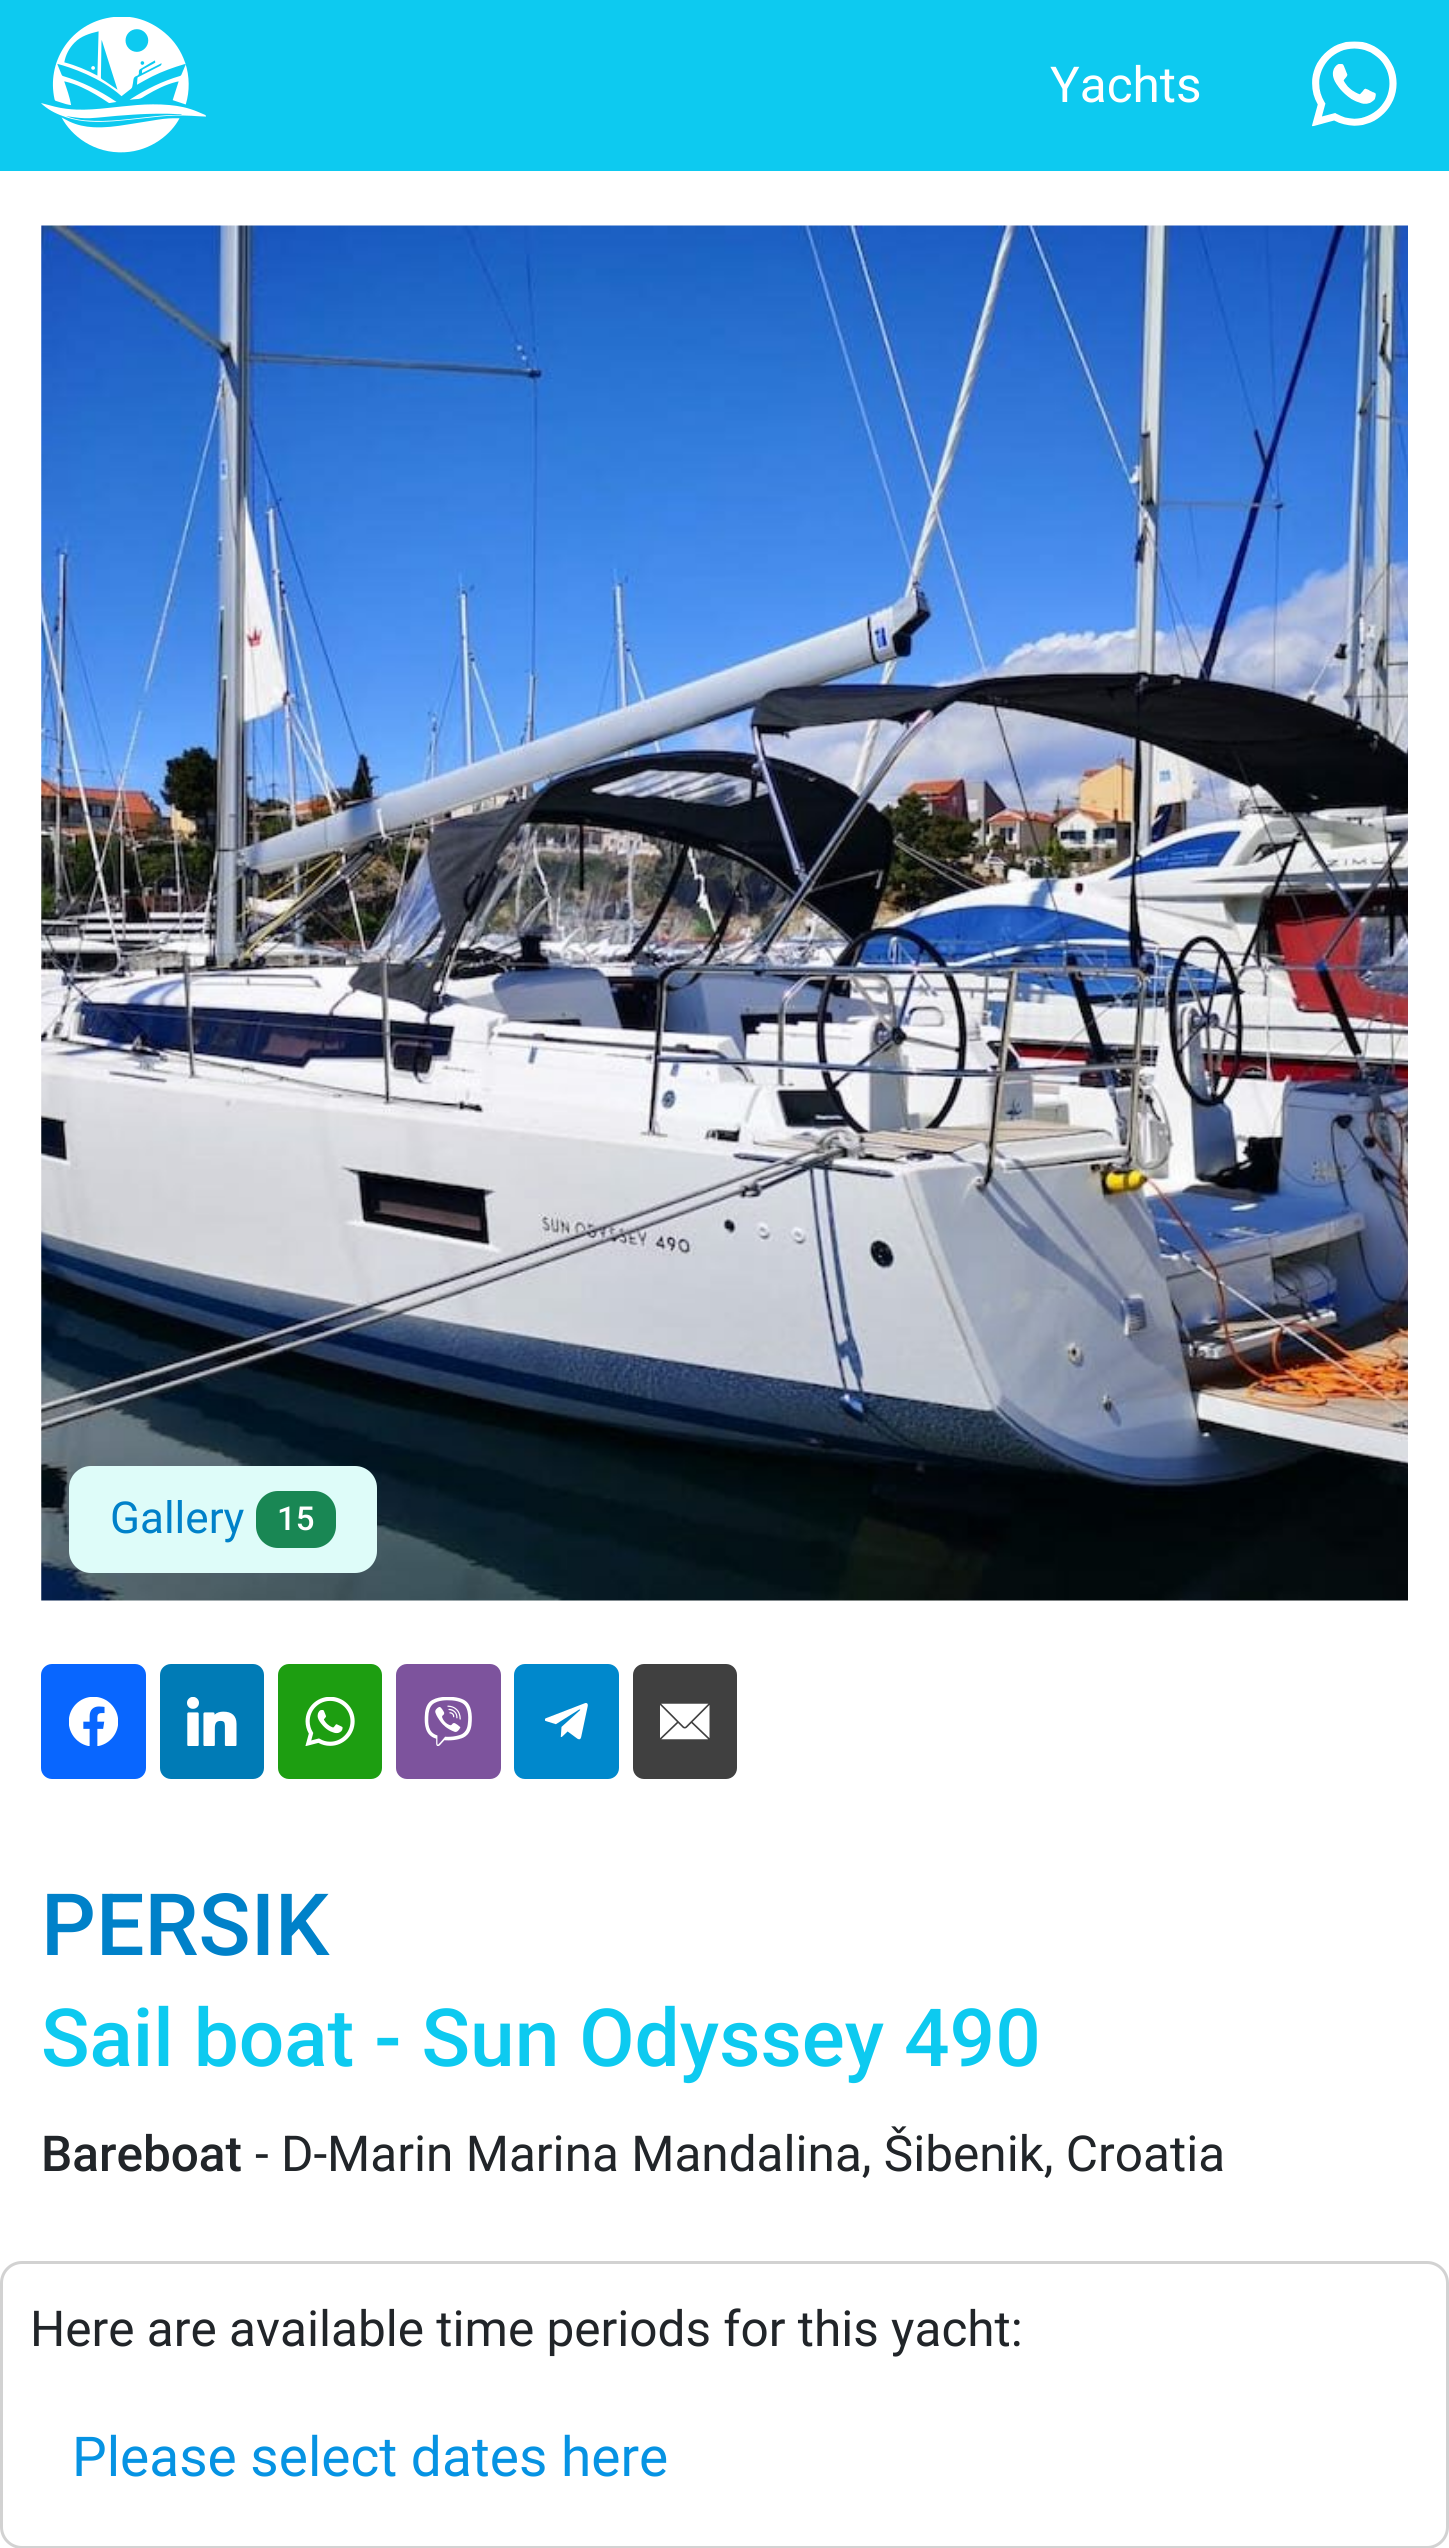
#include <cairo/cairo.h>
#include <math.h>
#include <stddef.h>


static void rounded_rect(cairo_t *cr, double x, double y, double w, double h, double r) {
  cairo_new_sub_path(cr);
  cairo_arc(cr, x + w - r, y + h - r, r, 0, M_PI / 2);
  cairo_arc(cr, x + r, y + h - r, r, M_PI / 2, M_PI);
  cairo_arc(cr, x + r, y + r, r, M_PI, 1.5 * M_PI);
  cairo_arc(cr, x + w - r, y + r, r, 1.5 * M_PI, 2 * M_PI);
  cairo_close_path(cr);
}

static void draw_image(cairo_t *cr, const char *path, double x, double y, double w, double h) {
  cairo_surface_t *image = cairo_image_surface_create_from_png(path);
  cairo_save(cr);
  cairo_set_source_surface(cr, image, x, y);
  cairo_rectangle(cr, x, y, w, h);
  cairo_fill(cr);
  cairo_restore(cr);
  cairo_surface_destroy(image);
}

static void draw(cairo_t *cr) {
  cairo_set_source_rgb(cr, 1, 1, 1);
  cairo_paint(cr);
  cairo_set_source_rgb(cr, 13 / 255.0, 202 / 255.0, 240 / 255.0);
  cairo_rectangle(cr, 0, 0, 1449, 171);
  cairo_fill(cr);
  draw_image(cr, "images/1.png", 41, 17, 165, 136);
  draw_image(cr, "images/2.png", 1312, 41, 85, 86);
  draw_image(cr, "images/3.png", 41, 225, 1367, 1376);
  cairo_set_source_rgb(cr, 222 / 255.0, 252 / 255.0, 249 / 255.0);
  rounded_rect(cr, 69, 1466, 308, 107, 22);
  cairo_fill(cr);
  cairo_set_source_rgb(cr, 25 / 255.0, 135 / 255.0, 84 / 255.0);
  rounded_rect(cr, 256, 1491, 80, 57, 22);
  cairo_fill(cr);
  cairo_set_source_rgb(cr, 8 / 255.0, 102 / 255.0, 1);
  rounded_rect(cr, 41, 1664, 105, 115, 11);
  cairo_fill(cr);
  draw_image(cr, "images/4.png", 69, 1697, 49, 49);
  cairo_set_source_rgb(cr, 0, 123 / 255.0, 182 / 255.0);
  rounded_rect(cr, 160, 1664, 104, 115, 11);
  cairo_fill(cr);
  draw_image(cr, "images/5.png", 187, 1697, 50, 49);
  cairo_set_source_rgb(cr, 29 / 255.0, 158 / 255.0, 17 / 255.0);
  rounded_rect(cr, 278, 1664, 104, 115, 11);
  cairo_fill(cr);
  draw_image(cr, "images/6.png", 305, 1697, 50, 49);
  cairo_set_source_rgb(cr, 125 / 255.0, 83 / 255.0, 157 / 255.0);
  rounded_rect(cr, 396, 1664, 105, 115, 11);
  cairo_fill(cr);
  draw_image(cr, "images/7.png", 424, 1697, 48, 49);
  cairo_set_source_rgb(cr, 0, 136 / 255.0, 204 / 255.0);
  rounded_rect(cr, 514, 1664, 105, 115, 11);
  cairo_fill(cr);
  draw_image(cr, "images/8.png", 545, 1703, 43, 37);
  cairo_set_source_rgb(cr, 64 / 255.0, 64 / 255.0, 64 / 255.0);
  rounded_rect(cr, 633, 1664, 104, 115, 11);
  cairo_fill(cr);
  draw_image(cr, "images/9.png", 660, 1703, 50, 37);
  rounded_rect(cr, 1.5, 2262.5, 1446, 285, 20.5);
  cairo_set_source_rgb(cr, 210 / 255.0, 210 / 255.0, 210 / 255.0);
  cairo_set_line_width(cr, 3);
  cairo_stroke(cr);
  cairo_select_font_face(cr, "Roboto", CAIRO_FONT_SLANT_NORMAL, CAIRO_FONT_WEIGHT_NORMAL);
  cairo_set_font_size(cr, 49.5);
  cairo_set_source_rgb(cr, 1, 1, 1);
  cairo_move_to(cr, 1050, 102);
  cairo_show_text(cr, "Yachts");
  cairo_set_font_size(cr, 44);
  cairo_set_source_rgb(cr, 0, 129 / 255.0, 201 / 255.0);
  cairo_move_to(cr, 110, 1533);
  cairo_show_text(cr, "Gallery");
  cairo_select_font_face(cr, "Roboto Medium", CAIRO_FONT_SLANT_NORMAL, CAIRO_FONT_WEIGHT_NORMAL);
  cairo_set_font_size(cr, 33);
  cairo_set_source_rgb(cr, 1, 1, 1);
  cairo_move_to(cr, 277, 1530);
  cairo_show_text(cr, "15");
  cairo_set_font_size(cr, 86);
  cairo_set_source_rgb(cr, 0, 129 / 255.0, 201 / 255.0);
  cairo_move_to(cr, 41, 1955);
  cairo_show_text(cr, "PERSIK");
  cairo_set_font_size(cr, 80.25);
  cairo_set_source_rgb(cr, 13 / 255.0, 202 / 255.0, 240 / 255.0);
  cairo_move_to(cr, 41, 2066);
  cairo_show_text(cr, "Sail boat - Sun Odyssey 490");
  cairo_set_font_size(cr, 49.5);
  cairo_set_source_rgb(cr, 33 / 255.0, 37 / 255.0, 41 / 255.0);
  cairo_move_to(cr, 41, 2171);
  cairo_show_text(cr, "Bareboat");
  cairo_select_font_face(cr, "Roboto", CAIRO_FONT_SLANT_NORMAL, CAIRO_FONT_WEIGHT_NORMAL);
  cairo_move_to(cr, 255, 2171);
  cairo_show_text(cr, "- D-Marin Marina Mandalina, Šibenik, Croatia");
  cairo_move_to(cr, 30, 2346);
  cairo_show_text(cr, "Here are available time periods for this yacht:");
  cairo_set_font_size(cr, 55);
  cairo_set_source_rgb(cr, 6 / 255.0, 147 / 255.0, 227 / 255.0);
  cairo_move_to(cr, 72, 2476);
  cairo_show_text(cr, "Please select dates here");
}

int main(void) {
  cairo_surface_t *surface = cairo_image_surface_create(CAIRO_FORMAT_RGB24, 1449, 2548);
  cairo_t *cr = cairo_create(surface);
  cairo_font_options_t *options = cairo_font_options_create();
  cairo_font_options_set_hint_metrics(options, CAIRO_HINT_METRICS_OFF);
  cairo_font_options_set_hint_style(options, CAIRO_HINT_STYLE_NONE);
  cairo_set_font_options(cr, options);
  cairo_set_miter_limit(cr, 4);
  draw(cr);
  cairo_surface_write_to_png(surface, "out.png");
  cairo_font_options_destroy(options);
  cairo_destroy(cr);
  cairo_surface_destroy(surface);
  return 0;
}
